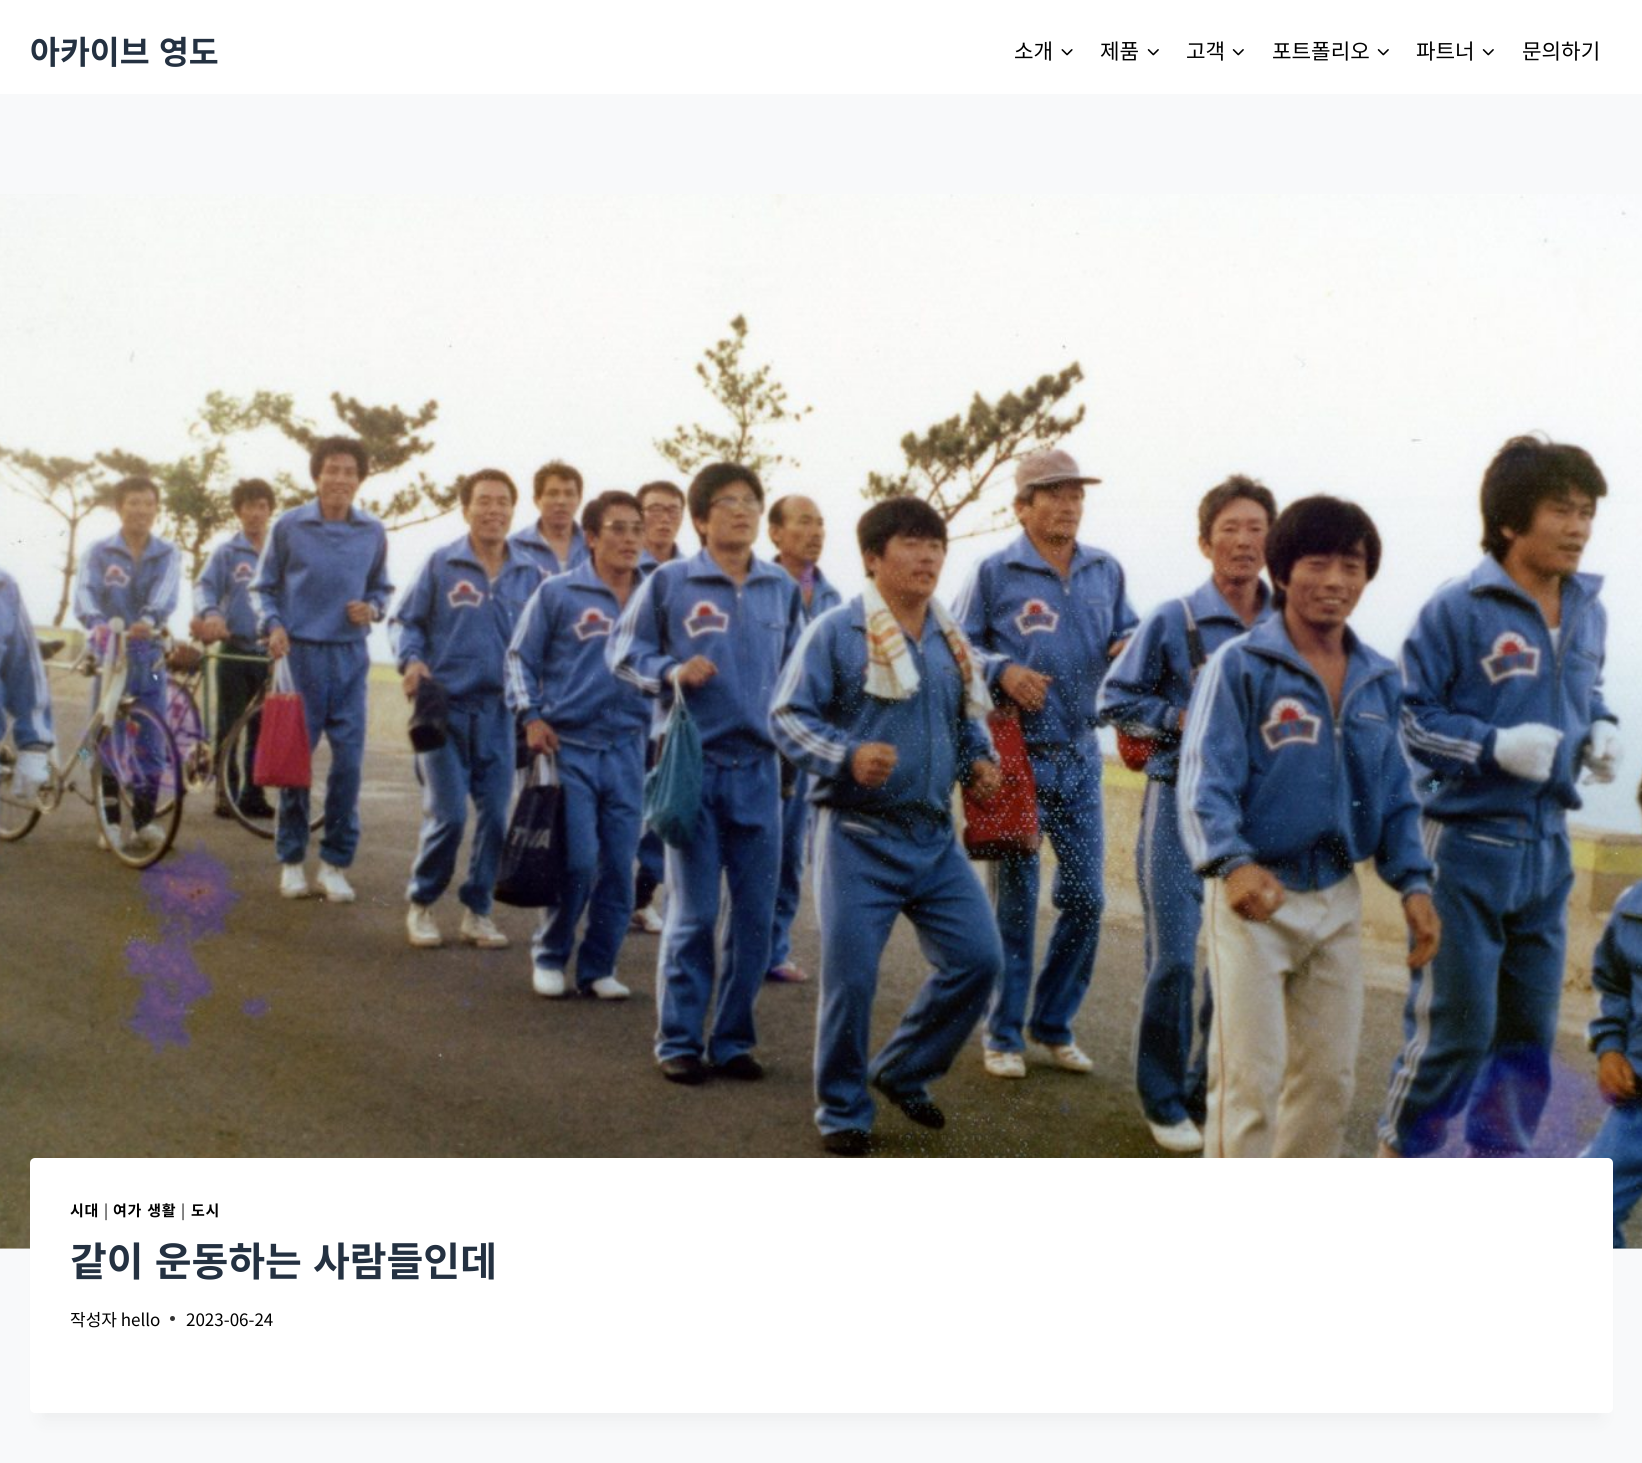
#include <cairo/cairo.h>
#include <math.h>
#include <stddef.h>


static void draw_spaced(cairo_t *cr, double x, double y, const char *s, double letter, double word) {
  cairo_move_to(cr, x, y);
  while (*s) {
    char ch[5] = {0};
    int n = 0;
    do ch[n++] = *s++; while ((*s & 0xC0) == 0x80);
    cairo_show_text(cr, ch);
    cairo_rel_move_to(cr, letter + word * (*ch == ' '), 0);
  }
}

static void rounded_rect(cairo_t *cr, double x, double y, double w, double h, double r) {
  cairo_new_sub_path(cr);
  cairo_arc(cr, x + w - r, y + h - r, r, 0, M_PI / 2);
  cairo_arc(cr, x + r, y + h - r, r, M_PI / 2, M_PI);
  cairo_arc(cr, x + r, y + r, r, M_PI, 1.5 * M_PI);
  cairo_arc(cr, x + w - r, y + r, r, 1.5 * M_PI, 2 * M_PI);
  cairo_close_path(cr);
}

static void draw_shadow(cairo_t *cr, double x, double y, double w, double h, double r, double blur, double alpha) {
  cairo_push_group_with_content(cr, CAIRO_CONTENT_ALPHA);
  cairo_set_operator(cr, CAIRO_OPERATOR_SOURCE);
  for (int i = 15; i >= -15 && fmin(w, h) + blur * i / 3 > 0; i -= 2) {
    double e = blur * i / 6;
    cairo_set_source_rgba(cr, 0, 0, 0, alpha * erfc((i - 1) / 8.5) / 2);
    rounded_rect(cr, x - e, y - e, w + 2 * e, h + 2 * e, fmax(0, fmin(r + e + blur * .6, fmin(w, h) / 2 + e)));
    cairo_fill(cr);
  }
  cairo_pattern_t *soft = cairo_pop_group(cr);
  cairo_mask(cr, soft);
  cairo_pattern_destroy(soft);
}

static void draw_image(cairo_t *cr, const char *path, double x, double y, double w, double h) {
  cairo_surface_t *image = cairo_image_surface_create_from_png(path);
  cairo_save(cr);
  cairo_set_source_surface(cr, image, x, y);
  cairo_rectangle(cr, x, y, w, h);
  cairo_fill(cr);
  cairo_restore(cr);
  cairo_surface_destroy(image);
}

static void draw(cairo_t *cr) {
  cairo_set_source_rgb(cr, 248 / 255.0, 249 / 255.0, 250 / 255.0);
  cairo_paint(cr);
  cairo_set_source_rgb(cr, 1, 1, 1);
  cairo_rectangle(cr, 0, 0, 1642, 94);
  cairo_fill(cr);
  draw_image(cr, "images/1.png", 1061, 49, 12, 7);
  draw_image(cr, "images/2.png", 1147, 49, 12, 7);
  draw_image(cr, "images/2.png", 1232, 49, 12, 7);
  draw_image(cr, "images/2.png", 1377, 49, 12, 7);
  draw_image(cr, "images/2.png", 1482, 49, 12, 7);
  draw_image(cr, "images/3.png", 0, 194, 1642, 1055);
  cairo_set_source_rgb(cr, 0, 0, 0);
  draw_shadow(cr, 43, 1189, 1557, 230, 0, 9.5, 0.05);
  cairo_set_source_rgb(cr, 1, 1, 1);
  rounded_rect(cr, 30, 1158, 1583, 255, 5);
  cairo_fill(cr);
  cairo_set_source_rgb(cr, 51 / 255.0, 51 / 255.0, 51 / 255.0);
  cairo_arc(cr, 172.5, 1318.5, 2.5, 0, 2 * M_PI);
  cairo_fill(cr);
  cairo_select_font_face(cr, "Noto Sans KR", CAIRO_FONT_SLANT_NORMAL, CAIRO_FONT_WEIGHT_BOLD);
  cairo_set_font_size(cr, 32.5);
  cairo_set_source_rgb(cr, 36 / 255.0, 49 / 255.0, 65 / 255.0);
  draw_spaced(cr, 30, 64, "아카이브 영도", 0, 2);
  cairo_select_font_face(cr, "Noto Sans KR", CAIRO_FONT_SLANT_NORMAL, CAIRO_FONT_WEIGHT_NORMAL);
  cairo_set_font_size(cr, 21.25);
  cairo_set_source_rgb(cr, 0, 0, 0);
  cairo_move_to(cr, 1014, 59);
  cairo_show_text(cr, "소개");
  cairo_move_to(cr, 1100, 59);
  cairo_show_text(cr, "제품");
  cairo_move_to(cr, 1186, 59);
  cairo_show_text(cr, "고객");
  cairo_move_to(cr, 1272, 59);
  cairo_show_text(cr, "포트폴리오");
  cairo_move_to(cr, 1416, 59);
  cairo_show_text(cr, "파트너");
  cairo_move_to(cr, 1522, 59);
  cairo_show_text(cr, "문의하기");
  cairo_select_font_face(cr, "Noto Sans KR", CAIRO_FONT_SLANT_NORMAL, CAIRO_FONT_WEIGHT_BOLD);
  cairo_set_font_size(cr, 15);
  draw_spaced(cr, 70, 1216, "시대", 0.75, 0);
  cairo_select_font_face(cr, "Noto Sans KR", CAIRO_FONT_SLANT_NORMAL, CAIRO_FONT_WEIGHT_NORMAL);
  draw_spaced(cr, 104, 1216, "|", 0.75, 0);
  cairo_select_font_face(cr, "Noto Sans KR", CAIRO_FONT_SLANT_NORMAL, CAIRO_FONT_WEIGHT_BOLD);
  draw_spaced(cr, 113, 1216, "여가 생활", 0.75, 1);
  cairo_select_font_face(cr, "Noto Sans KR", CAIRO_FONT_SLANT_NORMAL, CAIRO_FONT_WEIGHT_NORMAL);
  draw_spaced(cr, 181, 1216, "|", 0.75, 0);
  cairo_select_font_face(cr, "Noto Sans KR", CAIRO_FONT_SLANT_NORMAL, CAIRO_FONT_WEIGHT_BOLD);
  draw_spaced(cr, 191, 1216, "도시", 0.75, 0);
  cairo_set_font_size(cr, 40);
  cairo_set_source_rgb(cr, 36 / 255.0, 49 / 255.0, 65 / 255.0);
  draw_spaced(cr, 70, 1276, "같이 운동하는 사람들인데", 0, 2);
  cairo_select_font_face(cr, "Noto Sans KR", CAIRO_FONT_SLANT_NORMAL, CAIRO_FONT_WEIGHT_NORMAL);
  cairo_set_font_size(cr, 17);
  cairo_set_source_rgb(cr, 0, 0, 0);
  cairo_move_to(cr, 70, 1326);
  cairo_show_text(cr, "작성자 hello");
  cairo_move_to(cr, 186, 1326);
  cairo_show_text(cr, "2023-06-24");
}

int main(void) {
  cairo_surface_t *surface = cairo_image_surface_create(CAIRO_FORMAT_RGB24, 1642, 1463);
  cairo_t *cr = cairo_create(surface);
  cairo_font_options_t *options = cairo_font_options_create();
  cairo_font_options_set_hint_metrics(options, CAIRO_HINT_METRICS_OFF);
  cairo_font_options_set_hint_style(options, CAIRO_HINT_STYLE_NONE);
  cairo_set_font_options(cr, options);
  cairo_set_miter_limit(cr, 4);
  draw(cr);
  cairo_surface_write_to_png(surface, "out.png");
  cairo_font_options_destroy(options);
  cairo_destroy(cr);
  cairo_surface_destroy(surface);
  return 0;
}
